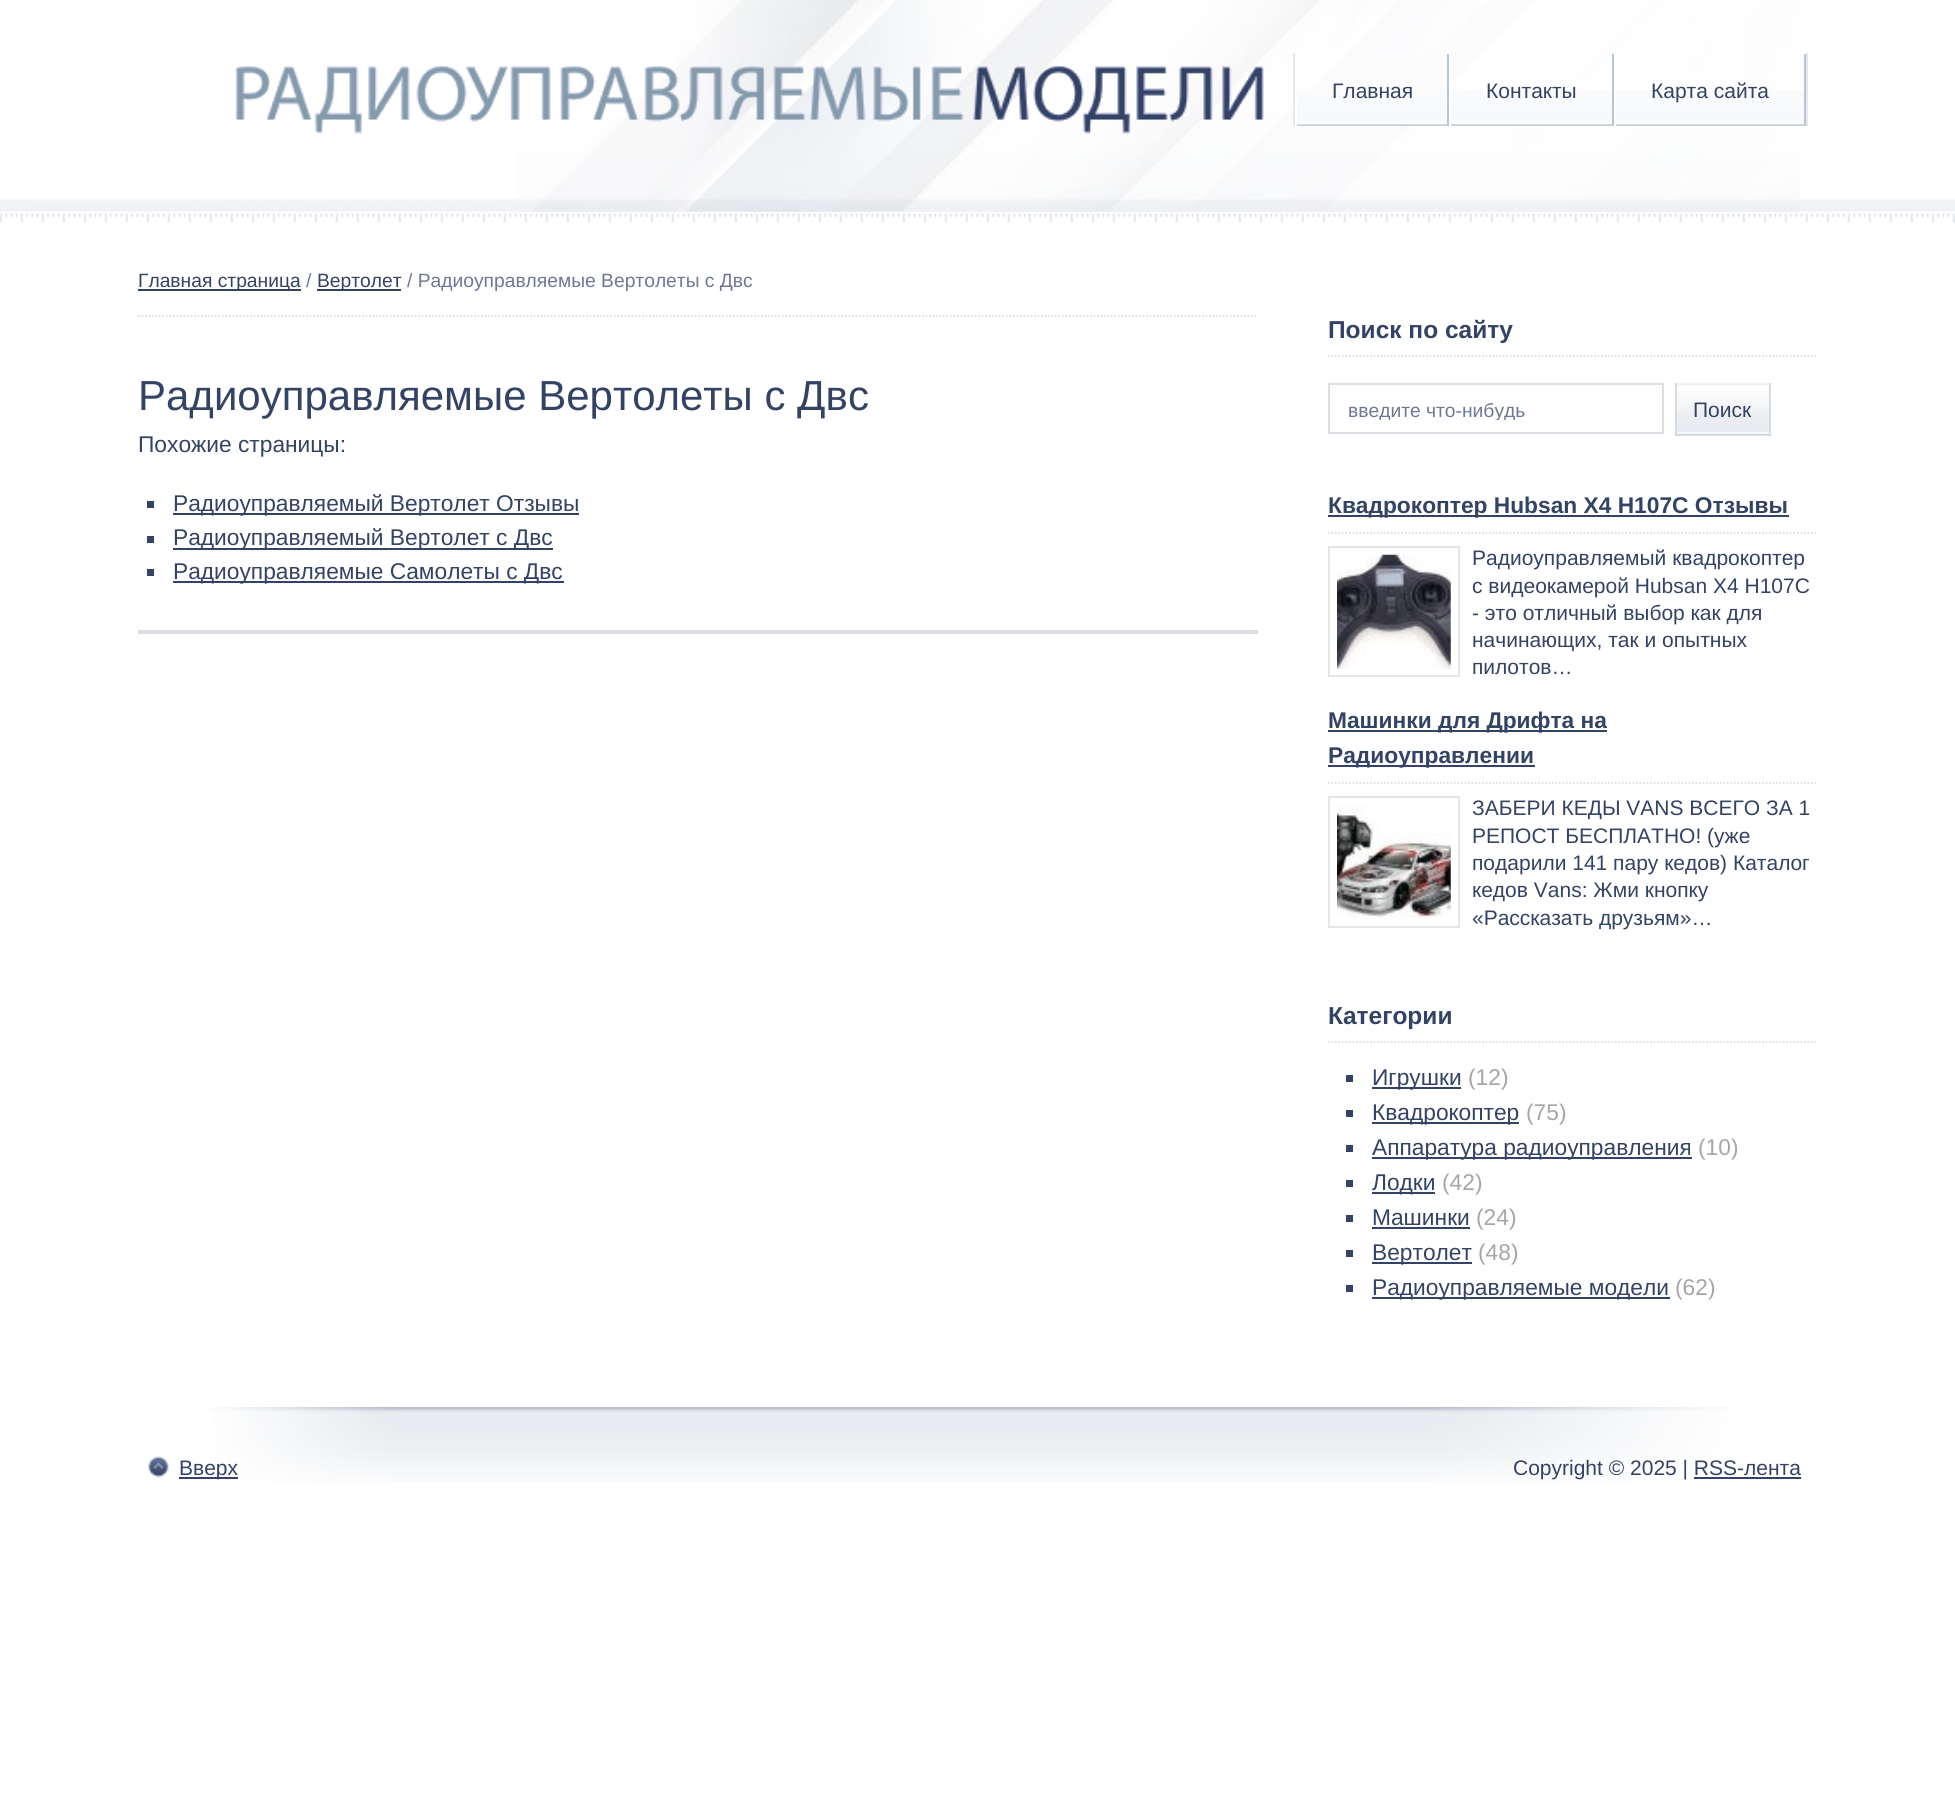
#include <cairo/cairo.h>
#include <math.h>
#include <stddef.h>


static void draw_image(cairo_t *cr, const char *path, double x, double y, double w, double h) {
  cairo_surface_t *image = cairo_image_surface_create_from_png(path);
  cairo_save(cr);
  cairo_set_source_surface(cr, image, x, y);
  cairo_rectangle(cr, x, y, w, h);
  cairo_fill(cr);
  cairo_restore(cr);
  cairo_surface_destroy(image);
}

static void draw(cairo_t *cr) {
  cairo_set_source_rgb(cr, 1, 1, 1);
  cairo_paint(cr);
  draw_image(cr, "images/1.png", 0, 199, 1955, 24);
  draw_image(cr, "images/2.png", 517, 0, 1283, 212);
  draw_image(cr, "images/3.png", 235, 66, 1029, 68);
  draw_image(cr, "images/4.png", 1297, 90, 507, 36);
  cairo_set_source_rgb(cr, 228 / 255.0, 233 / 255.0, 237 / 255.0);
  cairo_rectangle(cr, 1806, 53, 2, 73);
  cairo_fill(cr);
  cairo_rectangle(cr, 1293, 53, 2, 73);
  cairo_fill(cr);
  cairo_set_source_rgb(cr, 184 / 255.0, 198 / 255.0, 209 / 255.0);
  cairo_rectangle(cr, 1447, 54, 2, 72);
  cairo_fill(cr);
  cairo_set_source_rgb(cr, 1, 1, 1);
  cairo_rectangle(cr, 1295, 102, 2, 24);
  cairo_fill(cr);
  cairo_set_source_rgb(cr, 184 / 255.0, 198 / 255.0, 209 / 255.0);
  cairo_rectangle(cr, 1612, 54, 2, 72);
  cairo_fill(cr);
  cairo_set_source_rgb(cr, 1, 1, 1);
  cairo_rectangle(cr, 1449, 54, 2, 72);
  cairo_fill(cr);
  cairo_set_source_rgb(cr, 184 / 255.0, 198 / 255.0, 209 / 255.0);
  cairo_rectangle(cr, 1804, 54, 2, 72);
  cairo_fill(cr);
  cairo_set_source_rgb(cr, 1, 1, 1);
  cairo_rectangle(cr, 1614, 90, 2, 36);
  cairo_fill(cr);
  cairo_new_path(cr);
  cairo_move_to(cr, 138, 316);
  cairo_line_to(cr, 1258, 316);
  cairo_set_source_rgb(cr, 219 / 255.0, 222 / 255.0, 228 / 255.0);
  cairo_set_line_width(cr, 1.8);
  cairo_set_dash(cr, (double[]){1.75, 1.75}, 2, 0);
  cairo_stroke(cr);
  cairo_set_source_rgb(cr, 51 / 255.0, 67 / 255.0, 102 / 255.0);
  cairo_rectangle(cr, 138, 289, 163, 2);
  cairo_fill(cr);
  cairo_rectangle(cr, 317, 289, 84, 2);
  cairo_fill(cr);
  cairo_set_source_rgb(cr, 219 / 255.0, 222 / 255.0, 228 / 255.0);
  cairo_rectangle(cr, 138, 630, 1120, 4);
  cairo_fill(cr);
  cairo_set_source_rgb(cr, 51 / 255.0, 67 / 255.0, 102 / 255.0);
  cairo_rectangle(cr, 147, 501, 7, 7);
  cairo_fill(cr);
  cairo_rectangle(cr, 173, 513, 406, 2);
  cairo_fill(cr);
  cairo_rectangle(cr, 147, 536, 7, 7);
  cairo_fill(cr);
  cairo_rectangle(cr, 173, 548, 380, 2);
  cairo_fill(cr);
  cairo_rectangle(cr, 147, 569, 7, 7);
  cairo_fill(cr);
  cairo_rectangle(cr, 173, 581, 391, 2);
  cairo_fill(cr);
  cairo_new_path(cr);
  cairo_move_to(cr, 1328, 356);
  cairo_line_to(cr, 1818, 356);
  cairo_set_source_rgb(cr, 219 / 255.0, 222 / 255.0, 228 / 255.0);
  cairo_stroke(cr);
  cairo_rectangle(cr, 1329, 384, 334, 49);
  cairo_set_line_width(cr, 2);
  cairo_set_dash(cr, NULL, 0, 0);
  cairo_stroke(cr);
  draw_image(cr, "images/5.png", 1674, 383, 95, 53);
  cairo_set_source_rgb(cr, 212 / 255.0, 219 / 255.0, 225 / 255.0);
  cairo_rectangle(cr, 1769, 383, 2, 53);
  cairo_fill(cr);
  cairo_rectangle(cr, 1675, 383, 2, 53);
  cairo_fill(cr);
  cairo_new_path(cr);
  cairo_move_to(cr, 1328, 533);
  cairo_line_to(cr, 1818, 533);
  cairo_set_source_rgb(cr, 219 / 255.0, 222 / 255.0, 228 / 255.0);
  cairo_set_line_width(cr, 1.8);
  cairo_set_dash(cr, (double[]){1.75, 1.75}, 2, 0);
  cairo_stroke(cr);
  cairo_set_source_rgb(cr, 51 / 255.0, 67 / 255.0, 102 / 255.0);
  cairo_rectangle(cr, 1328, 515, 461, 2);
  cairo_fill(cr);
  cairo_rectangle(cr, 1329, 547, 130, 129);
  cairo_set_source_rgb(cr, 230 / 255.0, 230 / 255.0, 230 / 255.0);
  cairo_set_line_width(cr, 2);
  cairo_set_dash(cr, NULL, 0, 0);
  cairo_stroke(cr);
  draw_image(cr, "images/6.png", 1337, 554, 114, 115);
  cairo_new_path(cr);
  cairo_move_to(cr, 1328, 783);
  cairo_line_to(cr, 1818, 783);
  cairo_set_source_rgb(cr, 219 / 255.0, 222 / 255.0, 228 / 255.0);
  cairo_set_line_width(cr, 1.8);
  cairo_set_dash(cr, (double[]){1.75, 1.75}, 2, 0);
  cairo_stroke(cr);
  cairo_set_source_rgb(cr, 51 / 255.0, 67 / 255.0, 102 / 255.0);
  cairo_rectangle(cr, 1328, 730, 279, 2);
  cairo_fill(cr);
  cairo_rectangle(cr, 1328, 765, 207, 2);
  cairo_fill(cr);
  cairo_rectangle(cr, 1329, 797, 130, 130);
  cairo_set_source_rgb(cr, 230 / 255.0, 230 / 255.0, 230 / 255.0);
  cairo_set_line_width(cr, 2);
  cairo_set_dash(cr, NULL, 0, 0);
  cairo_stroke(cr);
  draw_image(cr, "images/7.png", 1337, 805, 114, 113);
  cairo_new_path(cr);
  cairo_move_to(cr, 1328, 1042);
  cairo_line_to(cr, 1818, 1042);
  cairo_set_source_rgb(cr, 219 / 255.0, 222 / 255.0, 228 / 255.0);
  cairo_set_line_width(cr, 1.8);
  cairo_set_dash(cr, (double[]){1.75, 1.75}, 2, 0);
  cairo_stroke(cr);
  cairo_set_source_rgb(cr, 51 / 255.0, 67 / 255.0, 102 / 255.0);
  cairo_rectangle(cr, 1346, 1075, 7, 7);
  cairo_fill(cr);
  cairo_rectangle(cr, 1372, 1087, 89, 2);
  cairo_fill(cr);
  cairo_rectangle(cr, 1346, 1110, 7, 7);
  cairo_fill(cr);
  cairo_rectangle(cr, 1372, 1122, 147, 2);
  cairo_fill(cr);
  cairo_rectangle(cr, 1346, 1145, 7, 7);
  cairo_fill(cr);
  cairo_rectangle(cr, 1372, 1157, 320, 2);
  cairo_fill(cr);
  cairo_rectangle(cr, 1346, 1180, 7, 7);
  cairo_fill(cr);
  cairo_rectangle(cr, 1372, 1192, 63, 2);
  cairo_fill(cr);
  cairo_rectangle(cr, 1346, 1215, 7, 7);
  cairo_fill(cr);
  cairo_rectangle(cr, 1372, 1227, 98, 2);
  cairo_fill(cr);
  cairo_rectangle(cr, 1346, 1250, 7, 7);
  cairo_fill(cr);
  cairo_rectangle(cr, 1372, 1262, 100, 2);
  cairo_fill(cr);
  cairo_rectangle(cr, 1346, 1285, 7, 7);
  cairo_fill(cr);
  cairo_rectangle(cr, 1372, 1297, 298, 2);
  cairo_fill(cr);
  draw_image(cr, "images/8.png", 211, 1407, 1517, 76);
  draw_image(cr, "images/9.png", 148, 1456, 21, 22);
  cairo_rectangle(cr, 179, 1477, 59, 2);
  cairo_fill(cr);
  cairo_rectangle(cr, 1694, 1477, 107, 2);
  cairo_fill(cr);
  cairo_select_font_face(cr, "Liberation Sans", CAIRO_FONT_SLANT_NORMAL, CAIRO_FONT_WEIGHT_NORMAL);
  cairo_set_font_size(cr, 21);
  cairo_move_to(cr, 1332, 98);
  cairo_show_text(cr, "Главная");
  cairo_move_to(cr, 1486, 98);
  cairo_show_text(cr, "Контакты");
  cairo_move_to(cr, 1651, 98);
  cairo_show_text(cr, "Карта сайта");
  cairo_set_font_size(cr, 19.25);
  cairo_move_to(cr, 138, 287);
  cairo_show_text(cr, "Главная страница");
  cairo_set_source_rgb(cr, 108 / 255.0, 121 / 255.0, 150 / 255.0);
  cairo_move_to(cr, 306, 287);
  cairo_show_text(cr, "/");
  cairo_set_source_rgb(cr, 51 / 255.0, 67 / 255.0, 102 / 255.0);
  cairo_move_to(cr, 317, 287);
  cairo_show_text(cr, "Вертолет");
  cairo_set_source_rgb(cr, 108 / 255.0, 121 / 255.0, 150 / 255.0);
  cairo_move_to(cr, 407, 287);
  cairo_show_text(cr, "/ Радиоуправляемые Вертолеты с Двс");
  cairo_set_font_size(cr, 42);
  cairo_set_source_rgb(cr, 51 / 255.0, 67 / 255.0, 102 / 255.0);
  cairo_move_to(cr, 138, 410);
  cairo_show_text(cr, "Радиоуправляемые Вертолеты с Двс");
  cairo_set_font_size(cr, 22.75);
  cairo_move_to(cr, 138, 452);
  cairo_show_text(cr, "Похожие страницы:");
  cairo_move_to(cr, 173, 511);
  cairo_show_text(cr, "Радиоуправляемый Вертолет Отзывы");
  cairo_move_to(cr, 173, 545);
  cairo_show_text(cr, "Радиоуправляемый Вертолет с Двс");
  cairo_move_to(cr, 173, 579);
  cairo_show_text(cr, "Радиоуправляемые Самолеты с Двс");
  cairo_select_font_face(cr, "Liberation Sans", CAIRO_FONT_SLANT_NORMAL, CAIRO_FONT_WEIGHT_BOLD);
  cairo_set_font_size(cr, 24.5);
  cairo_move_to(cr, 1328, 338);
  cairo_show_text(cr, "Поиск по сайту");
  cairo_save(cr);
  cairo_rectangle(cr, 1348, 399, 297, 21);
  cairo_clip(cr);
  cairo_select_font_face(cr, "Liberation Sans", CAIRO_FONT_SLANT_NORMAL, CAIRO_FONT_WEIGHT_NORMAL);
  cairo_set_font_size(cr, 19.25);
  cairo_set_source_rgb(cr, 108 / 255.0, 121 / 255.0, 150 / 255.0);
  cairo_move_to(cr, 1348, 417);
  cairo_show_text(cr, "введите что-нибудь");
  cairo_restore(cr);
  cairo_select_font_face(cr, "Liberation Sans", CAIRO_FONT_SLANT_NORMAL, CAIRO_FONT_WEIGHT_NORMAL);
  cairo_set_font_size(cr, 21);
  cairo_move_to(cr, 1693, 417);
  cairo_show_text(cr, "Поиск");
  cairo_select_font_face(cr, "Liberation Sans", CAIRO_FONT_SLANT_NORMAL, CAIRO_FONT_WEIGHT_BOLD);
  cairo_set_font_size(cr, 22.75);
  cairo_move_to(cr, 1328, 513);
  cairo_show_text(cr, "Квадрокоптер Hubsan X4 H107C Отзывы");
  cairo_select_font_face(cr, "Liberation Sans", CAIRO_FONT_SLANT_NORMAL, CAIRO_FONT_WEIGHT_NORMAL);
  cairo_set_font_size(cr, 21);
  cairo_move_to(cr, 1472, 565);
  cairo_show_text(cr, "Радиоуправляемый квадрокоптер");
  cairo_move_to(cr, 1472, 593);
  cairo_show_text(cr, "с видеокамерой Hubsan X4 H107C");
  cairo_move_to(cr, 1472, 620);
  cairo_show_text(cr, "- это отличный выбор как для");
  cairo_move_to(cr, 1472, 647);
  cairo_show_text(cr, "начинающих, так и опытных");
  cairo_move_to(cr, 1472, 674);
  cairo_show_text(cr, "пилотов…");
  cairo_select_font_face(cr, "Liberation Sans", CAIRO_FONT_SLANT_NORMAL, CAIRO_FONT_WEIGHT_BOLD);
  cairo_set_font_size(cr, 22.75);
  cairo_move_to(cr, 1328, 728);
  cairo_show_text(cr, "Машинки для Дрифта на");
  cairo_move_to(cr, 1328, 763);
  cairo_show_text(cr, "Радиоуправлении");
  cairo_select_font_face(cr, "Liberation Sans", CAIRO_FONT_SLANT_NORMAL, CAIRO_FONT_WEIGHT_NORMAL);
  cairo_set_font_size(cr, 21);
  cairo_move_to(cr, 1472, 815);
  cairo_show_text(cr, "ЗАБЕРИ КЕДЫ VANS ВСЕГО ЗА 1");
  cairo_move_to(cr, 1472, 843);
  cairo_show_text(cr, "РЕПОСТ БЕСПЛАТНО! (уже");
  cairo_move_to(cr, 1472, 870);
  cairo_show_text(cr, "подарили 141 пару кедов) Каталог");
  cairo_move_to(cr, 1472, 897);
  cairo_show_text(cr, "кедов Vans: Жми кнопку");
  cairo_move_to(cr, 1472, 925);
  cairo_show_text(cr, "«Рассказать друзьям»…");
  cairo_select_font_face(cr, "Liberation Sans", CAIRO_FONT_SLANT_NORMAL, CAIRO_FONT_WEIGHT_BOLD);
  cairo_set_font_size(cr, 24.5);
  cairo_move_to(cr, 1328, 1024);
  cairo_show_text(cr, "Категории");
  cairo_select_font_face(cr, "Liberation Sans", CAIRO_FONT_SLANT_NORMAL, CAIRO_FONT_WEIGHT_NORMAL);
  cairo_set_font_size(cr, 22.75);
  cairo_move_to(cr, 1372, 1085);
  cairo_show_text(cr, "Игрушки");
  cairo_set_source_rgb(cr, 166 / 255.0, 166 / 255.0, 166 / 255.0);
  cairo_move_to(cr, 1468, 1085);
  cairo_show_text(cr, "(12)");
  cairo_set_source_rgb(cr, 51 / 255.0, 67 / 255.0, 102 / 255.0);
  cairo_move_to(cr, 1372, 1120);
  cairo_show_text(cr, "Квадрокоптер");
  cairo_set_source_rgb(cr, 166 / 255.0, 166 / 255.0, 166 / 255.0);
  cairo_move_to(cr, 1526, 1120);
  cairo_show_text(cr, "(75)");
  cairo_set_source_rgb(cr, 51 / 255.0, 67 / 255.0, 102 / 255.0);
  cairo_move_to(cr, 1372, 1155);
  cairo_show_text(cr, "Аппаратура радиоуправления");
  cairo_set_source_rgb(cr, 166 / 255.0, 166 / 255.0, 166 / 255.0);
  cairo_move_to(cr, 1698, 1155);
  cairo_show_text(cr, "(10)");
  cairo_set_source_rgb(cr, 51 / 255.0, 67 / 255.0, 102 / 255.0);
  cairo_move_to(cr, 1372, 1190);
  cairo_show_text(cr, "Лодки");
  cairo_set_source_rgb(cr, 166 / 255.0, 166 / 255.0, 166 / 255.0);
  cairo_move_to(cr, 1442, 1190);
  cairo_show_text(cr, "(42)");
  cairo_set_source_rgb(cr, 51 / 255.0, 67 / 255.0, 102 / 255.0);
  cairo_move_to(cr, 1372, 1225);
  cairo_show_text(cr, "Машинки");
  cairo_set_source_rgb(cr, 166 / 255.0, 166 / 255.0, 166 / 255.0);
  cairo_move_to(cr, 1476, 1225);
  cairo_show_text(cr, "(24)");
  cairo_set_source_rgb(cr, 51 / 255.0, 67 / 255.0, 102 / 255.0);
  cairo_move_to(cr, 1372, 1260);
  cairo_show_text(cr, "Вертолет");
  cairo_set_source_rgb(cr, 166 / 255.0, 166 / 255.0, 166 / 255.0);
  cairo_move_to(cr, 1478, 1260);
  cairo_show_text(cr, "(48)");
  cairo_set_source_rgb(cr, 51 / 255.0, 67 / 255.0, 102 / 255.0);
  cairo_move_to(cr, 1372, 1295);
  cairo_show_text(cr, "Радиоуправляемые модели");
  cairo_set_source_rgb(cr, 166 / 255.0, 166 / 255.0, 166 / 255.0);
  cairo_move_to(cr, 1675, 1295);
  cairo_show_text(cr, "(62)");
  cairo_set_font_size(cr, 21);
  cairo_set_source_rgb(cr, 51 / 255.0, 67 / 255.0, 102 / 255.0);
  cairo_move_to(cr, 179, 1475);
  cairo_show_text(cr, "Вверх");
  cairo_move_to(cr, 1513, 1475);
  cairo_show_text(cr, "Copyright © 2025 | RSS-лента");
}

int main(void) {
  cairo_surface_t *surface = cairo_image_surface_create(CAIRO_FORMAT_RGB24, 1955, 1816);
  cairo_t *cr = cairo_create(surface);
  cairo_font_options_t *options = cairo_font_options_create();
  cairo_font_options_set_hint_metrics(options, CAIRO_HINT_METRICS_OFF);
  cairo_font_options_set_hint_style(options, CAIRO_HINT_STYLE_NONE);
  cairo_set_font_options(cr, options);
  cairo_set_miter_limit(cr, 4);
  draw(cr);
  cairo_surface_write_to_png(surface, "out.png");
  cairo_font_options_destroy(options);
  cairo_destroy(cr);
  cairo_surface_destroy(surface);
  return 0;
}
